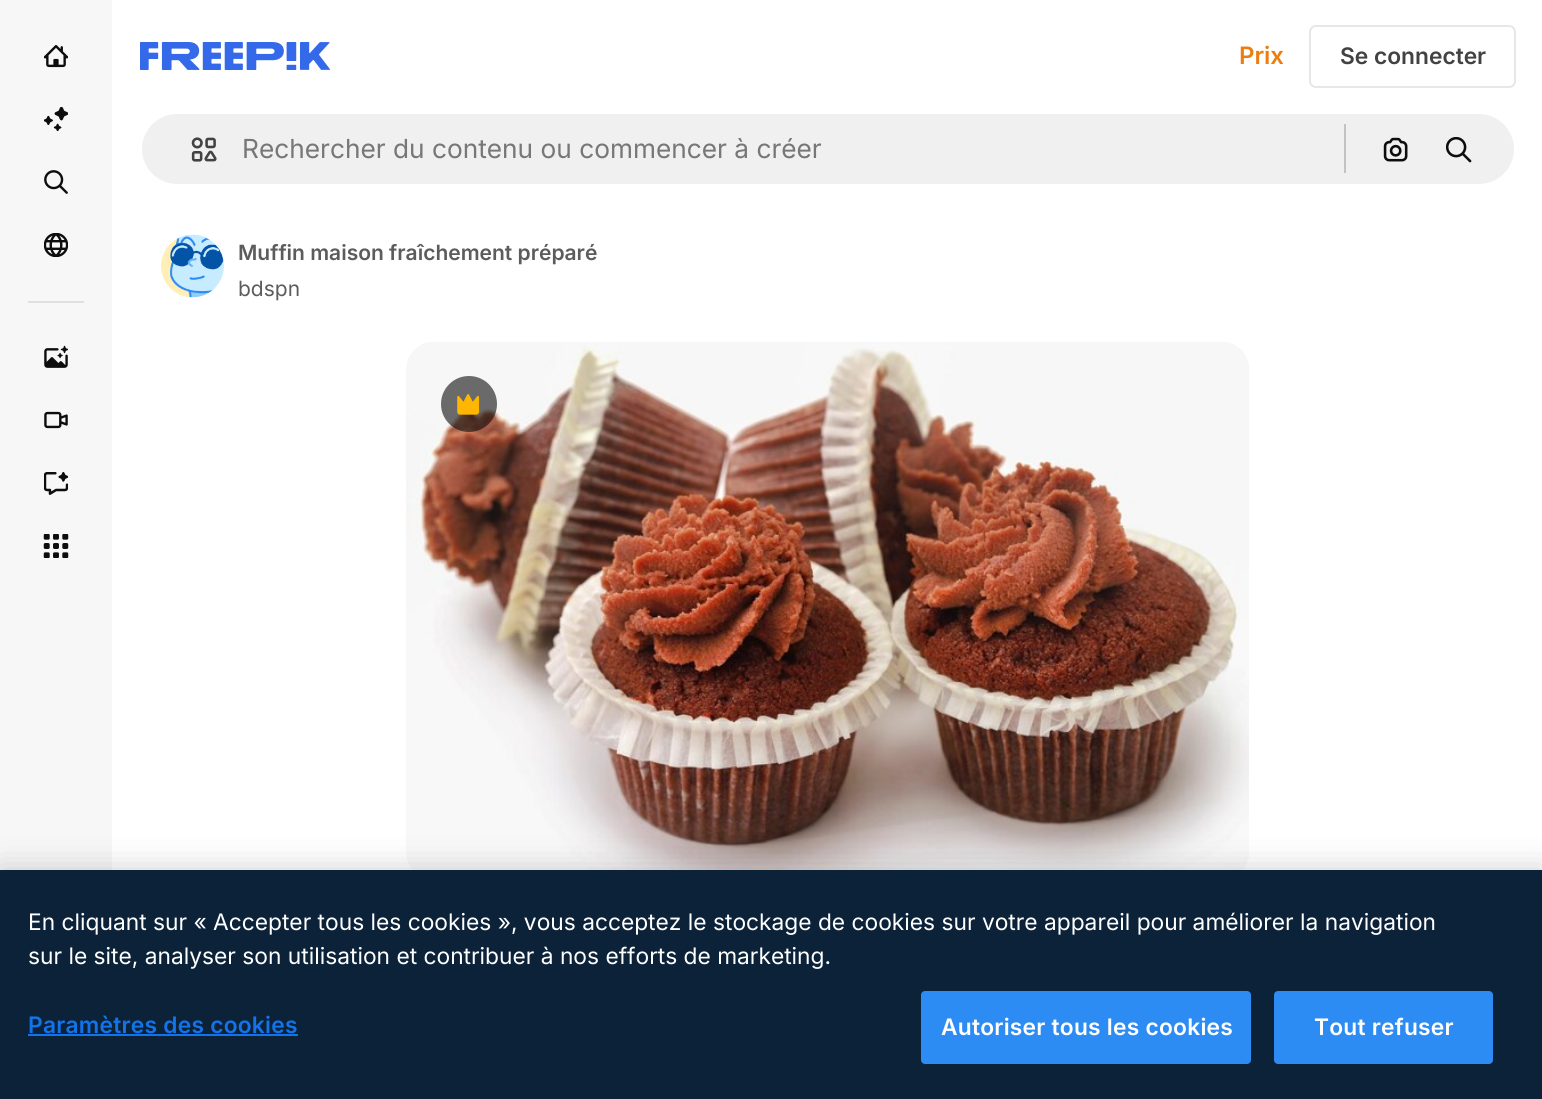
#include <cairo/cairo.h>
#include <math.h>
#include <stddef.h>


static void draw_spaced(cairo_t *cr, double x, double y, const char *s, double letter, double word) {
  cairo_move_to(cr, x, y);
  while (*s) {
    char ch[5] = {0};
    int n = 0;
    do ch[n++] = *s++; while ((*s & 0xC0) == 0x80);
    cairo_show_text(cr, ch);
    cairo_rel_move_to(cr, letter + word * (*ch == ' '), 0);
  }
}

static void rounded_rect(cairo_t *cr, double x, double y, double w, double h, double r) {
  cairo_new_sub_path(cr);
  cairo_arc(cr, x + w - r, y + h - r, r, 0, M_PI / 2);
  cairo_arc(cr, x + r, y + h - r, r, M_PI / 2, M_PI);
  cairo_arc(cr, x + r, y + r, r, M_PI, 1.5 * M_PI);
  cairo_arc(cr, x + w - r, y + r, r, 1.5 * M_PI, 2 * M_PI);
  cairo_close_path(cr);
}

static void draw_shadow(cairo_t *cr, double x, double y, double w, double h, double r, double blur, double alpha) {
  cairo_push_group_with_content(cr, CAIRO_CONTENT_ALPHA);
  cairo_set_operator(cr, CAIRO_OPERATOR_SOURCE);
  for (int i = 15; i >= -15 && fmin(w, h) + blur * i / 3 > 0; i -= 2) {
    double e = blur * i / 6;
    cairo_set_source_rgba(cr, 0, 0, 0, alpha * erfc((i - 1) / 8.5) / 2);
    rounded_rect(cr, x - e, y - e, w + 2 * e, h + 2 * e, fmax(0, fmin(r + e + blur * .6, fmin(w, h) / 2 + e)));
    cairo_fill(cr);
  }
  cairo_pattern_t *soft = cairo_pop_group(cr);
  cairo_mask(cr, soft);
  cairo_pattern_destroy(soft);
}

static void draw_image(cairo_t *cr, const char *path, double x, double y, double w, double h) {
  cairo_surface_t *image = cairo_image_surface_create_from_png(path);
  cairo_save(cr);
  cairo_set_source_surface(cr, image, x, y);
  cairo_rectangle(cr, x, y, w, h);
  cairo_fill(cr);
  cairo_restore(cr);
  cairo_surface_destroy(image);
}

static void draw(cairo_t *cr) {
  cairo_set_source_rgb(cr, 1, 1, 1);
  cairo_paint(cr);
  cairo_set_source_rgb(cr, 247 / 255.0, 247 / 255.0, 247 / 255.0);
  cairo_rectangle(cr, 0, 0, 112, 870);
  cairo_fill(cr);
  draw_image(cr, "images/1.png", 44, 45, 24, 23);
  draw_image(cr, "images/2.png", 44, 107, 24, 24);
  draw_image(cr, "images/3.png", 44, 170, 24, 24);
  draw_image(cr, "images/4.png", 44, 233, 24, 24);
  cairo_set_source_rgb(cr, 224 / 255.0, 224 / 255.0, 224 / 255.0);
  cairo_rectangle(cr, 28, 301, 56, 2);
  cairo_fill(cr);
  draw_image(cr, "images/5.png", 44, 345, 24, 23);
  draw_image(cr, "images/6.png", 44, 411, 24, 18);
  draw_image(cr, "images/7.png", 44, 472, 24, 23);
  draw_image(cr, "images/8.png", 43, 534, 26, 24);
  draw_image(cr, "images/9.png", 140, 42, 190, 28);
  rounded_rect(cr, 1310, 26, 205, 61, 6);
  cairo_set_source_rgb(cr, 231 / 255.0, 231 / 255.0, 231 / 255.0);
  cairo_stroke(cr);
  cairo_set_source_rgb(cr, 240 / 255.0, 240 / 255.0, 240 / 255.0);
  rounded_rect(cr, 141, 113, 1374, 72, 36);
  cairo_fill_preserve(cr);
  cairo_set_source_rgb(cr, 1, 1, 1);
  cairo_stroke(cr);
  draw_image(cr, "images/10.png", 191, 137, 26, 25);
  cairo_set_source_rgb(cr, 195 / 255.0, 195 / 255.0, 195 / 255.0);
  cairo_rectangle(cr, 1344, 124, 2, 49);
  cairo_fill(cr);
  draw_image(cr, "images/11.png", 1383, 137, 25, 25);
  draw_image(cr, "images/12.png", 1446, 137, 26, 26);
  draw_image(cr, "images/13.png", 161, 234, 63, 64);
  draw_image(cr, "images/14.png", 406, 342, 843, 528);
  cairo_set_source_rgba(cr, 13 / 255.0, 13 / 255.0, 13 / 255.0, 0.6);
  cairo_arc(cr, 469, 404, 28, 0, 2 * M_PI);
  cairo_fill(cr);
  draw_image(cr, "images/15.png", 457, 394, 23, 21);
  cairo_set_source_rgb(cr, 0, 0, 0);
  draw_shadow(cr, 0, 870, 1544, 229, 0, 16, 0.2);
  cairo_set_source_rgb(cr, 11 / 255.0, 34 / 255.0, 57 / 255.0);
  cairo_rectangle(cr, 0, 870, 1542, 229);
  cairo_fill(cr);
  cairo_set_source_rgb(cr, 18 / 255.0, 115 / 255.0, 235 / 255.0);
  cairo_rectangle(cr, 28, 1034, 270, 2);
  cairo_fill(cr);
  cairo_set_source_rgb(cr, 44 / 255.0, 140 / 255.0, 244 / 255.0);
  rounded_rect(cr, 922, 992, 328, 71, 3);
  cairo_fill_preserve(cr);
  cairo_stroke(cr);
  rounded_rect(cr, 1275, 992, 217, 71, 3);
  cairo_fill_preserve(cr);
  cairo_stroke(cr);
  cairo_select_font_face(cr, "Inter SemiBold", CAIRO_FONT_SLANT_NORMAL, CAIRO_FONT_WEIGHT_NORMAL);
  cairo_set_font_size(cr, 24);
  cairo_set_source_rgb(cr, 234 / 255.0, 126 / 255.0, 17 / 255.0);
  cairo_move_to(cr, 1239, 64);
  cairo_show_text(cr, "Prix");
  cairo_set_font_size(cr, 22.75);
  cairo_set_source_rgb(cr, 66 / 255.0, 66 / 255.0, 66 / 255.0);
  cairo_move_to(cr, 1340, 64);
  cairo_show_text(cr, "Se connecter");
  cairo_select_font_face(cr, "Inter", CAIRO_FONT_SLANT_NORMAL, CAIRO_FONT_WEIGHT_NORMAL);
  cairo_set_font_size(cr, 26.25);
  cairo_set_source_rgb(cr, 119 / 255.0, 119 / 255.0, 119 / 255.0);
  cairo_move_to(cr, 242, 158);
  cairo_show_text(cr, "Rechercher du contenu ou commencer à créer");
  cairo_select_font_face(cr, "Inter SemiBold", CAIRO_FONT_SLANT_NORMAL, CAIRO_FONT_WEIGHT_NORMAL);
  cairo_set_font_size(cr, 21);
  cairo_set_source_rgb(cr, 92 / 255.0, 92 / 255.0, 92 / 255.0);
  cairo_move_to(cr, 238, 260);
  cairo_show_text(cr, "Muffin maison fraîchement préparé");
  cairo_select_font_face(cr, "Inter", CAIRO_FONT_SLANT_NORMAL, CAIRO_FONT_WEIGHT_NORMAL);
  cairo_move_to(cr, 238, 296);
  cairo_show_text(cr, "bdspn");
  cairo_set_font_size(cr, 22.75);
  cairo_set_source_rgb(cr, 1, 1, 1);
  cairo_move_to(cr, 28, 930);
  cairo_show_text(cr, "En cliquant sur « Accepter tous les cookies », vous acceptez le stockage de cookies sur votre appareil pour améliorer la navigation");
  cairo_move_to(cr, 28, 964);
  cairo_show_text(cr, "sur le site, analyser son utilisation et contribuer à nos efforts de marketing.");
  cairo_select_font_face(cr, "Inter SemiBold", CAIRO_FONT_SLANT_NORMAL, CAIRO_FONT_WEIGHT_NORMAL);
  cairo_set_source_rgb(cr, 18 / 255.0, 115 / 255.0, 235 / 255.0);
  draw_spaced(cr, 28, 1033, "Paramètres des cookies", 0.25, 0);
  cairo_set_source_rgb(cr, 1, 1, 1);
  draw_spaced(cr, 941, 1035, "Autoriser tous les cookies", 0.25, 0);
  draw_spaced(cr, 1314, 1035, "Tout refuser", 0.25, 0);
}

int main(void) {
  cairo_surface_t *surface = cairo_image_surface_create(CAIRO_FORMAT_RGB24, 1542, 1099);
  cairo_t *cr = cairo_create(surface);
  cairo_font_options_t *options = cairo_font_options_create();
  cairo_font_options_set_hint_metrics(options, CAIRO_HINT_METRICS_OFF);
  cairo_font_options_set_hint_style(options, CAIRO_HINT_STYLE_NONE);
  cairo_set_font_options(cr, options);
  cairo_set_miter_limit(cr, 4);
  draw(cr);
  cairo_surface_write_to_png(surface, "out.png");
  cairo_font_options_destroy(options);
  cairo_destroy(cr);
  cairo_surface_destroy(surface);
  return 0;
}
